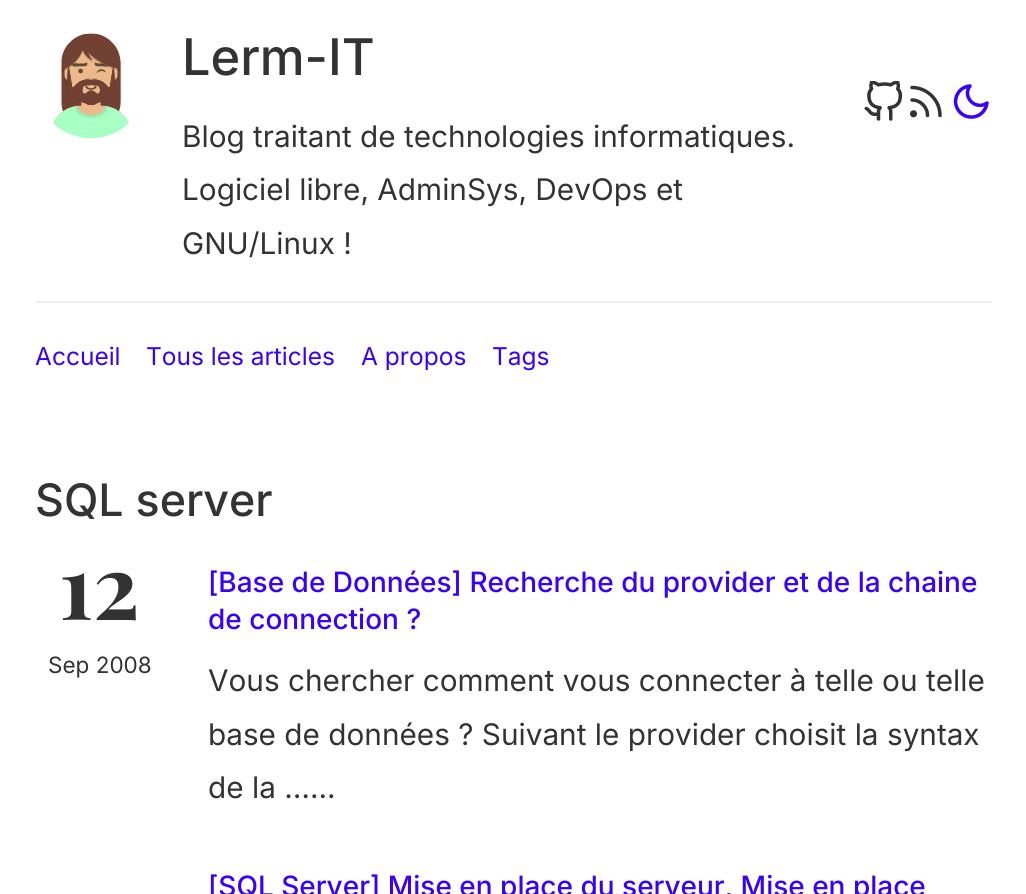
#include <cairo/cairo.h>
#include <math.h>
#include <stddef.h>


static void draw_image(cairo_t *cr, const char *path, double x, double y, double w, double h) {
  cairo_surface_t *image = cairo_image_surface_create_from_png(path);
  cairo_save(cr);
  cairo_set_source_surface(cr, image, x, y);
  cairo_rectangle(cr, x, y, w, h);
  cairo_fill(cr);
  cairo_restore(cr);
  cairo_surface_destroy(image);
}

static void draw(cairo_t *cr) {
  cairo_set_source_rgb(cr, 1, 1, 1);
  cairo_paint(cr);
  draw_image(cr, "images/1.png", 53, 33, 76, 105);
  draw_image(cr, "images/2.png", 864, 81, 39, 40);
  cairo_new_path(cr);
  cairo_move_to(cr, 912, 100);
  cairo_curve_to(cr, 920.5, 100, 927.5, 107, 927.5, 115.5);
  cairo_move_to(cr, 912, 87.5);
  cairo_curve_to(cr, 927, 87.5, 940, 100, 940, 115.5);
  cairo_set_source_rgb(cr, 51 / 255.0, 51 / 255.0, 51 / 255.0);
  cairo_set_line_width(cr, 3.5);
  cairo_set_line_cap(cr, CAIRO_LINE_CAP_ROUND);
  cairo_set_line_join(cr, CAIRO_LINE_JOIN_ROUND);
  cairo_stroke(cr);
  cairo_arc(cr, 913.5, 113.8, 1.8, 0, 2 * M_PI);
  cairo_set_line_cap(cr, CAIRO_LINE_CAP_BUTT);
  cairo_set_line_join(cr, CAIRO_LINE_JOIN_MITER);
  cairo_stroke(cr);
  cairo_new_path(cr);
  cairo_move_to(cr, 987, 103);
  cairo_curve_to(cr, 986, 111, 979, 117.5, 971, 117);
  cairo_curve_to(cr, 962.5, 117, 956, 110, 955.5, 102);
  cairo_curve_to(cr, 955.5, 93.5, 961.5, 86.5, 970, 86);
  cairo_curve_to(cr, 961.5, 97, 976, 111, 987, 103);
  cairo_close_path(cr);
  cairo_set_source_rgb(cr, 55 / 255.0, 0, 1);
  cairo_set_line_cap(cr, CAIRO_LINE_CAP_ROUND);
  cairo_set_line_join(cr, CAIRO_LINE_JOIN_ROUND);
  cairo_stroke(cr);
  cairo_set_source_rgb(cr, 238 / 255.0, 238 / 255.0, 238 / 255.0);
  cairo_rectangle(cr, 35, 301, 957, 2);
  cairo_fill(cr);
  cairo_select_font_face(cr, "Inter Medium", CAIRO_FONT_SLANT_NORMAL, CAIRO_FONT_WEIGHT_NORMAL);
  cairo_set_font_size(cr, 50.5);
  cairo_set_source_rgb(cr, 51 / 255.0, 51 / 255.0, 51 / 255.0);
  cairo_move_to(cr, 182, 75);
  cairo_show_text(cr, "Lerm-IT");
  cairo_select_font_face(cr, "Inter", CAIRO_FONT_SLANT_NORMAL, CAIRO_FONT_WEIGHT_NORMAL);
  cairo_set_font_size(cr, 29.75);
  cairo_move_to(cr, 182, 147);
  cairo_show_text(cr, "Blog traitant de technologies informatiques.");
  cairo_move_to(cr, 182, 200);
  cairo_show_text(cr, "Logiciel libre, AdminSys, DevOps et");
  cairo_move_to(cr, 182, 254);
  cairo_show_text(cr, "GNU/Linux !");
  cairo_set_font_size(cr, 24.5);
  cairo_set_source_rgb(cr, 55 / 255.0, 0, 1);
  cairo_move_to(cr, 35, 365);
  cairo_show_text(cr, "Accueil");
  cairo_move_to(cr, 146, 365);
  cairo_show_text(cr, "Tous les articles");
  cairo_move_to(cr, 361, 365);
  cairo_show_text(cr, "A propos");
  cairo_move_to(cr, 492, 365);
  cairo_show_text(cr, "Tags");
  cairo_select_font_face(cr, "Inter Medium", CAIRO_FONT_SLANT_NORMAL, CAIRO_FONT_WEIGHT_NORMAL);
  cairo_set_font_size(cr, 44.75);
  cairo_set_source_rgb(cr, 51 / 255.0, 51 / 255.0, 51 / 255.0);
  cairo_move_to(cr, 35, 516);
  cairo_show_text(cr, "SQL server");
  cairo_select_font_face(cr, "Playfair Display", CAIRO_FONT_SLANT_NORMAL, CAIRO_FONT_WEIGHT_BOLD);
  cairo_set_font_size(cr, 89);
  cairo_move_to(cr, 59, 620);
  cairo_show_text(cr, "12");
  cairo_select_font_face(cr, "Inter", CAIRO_FONT_SLANT_NORMAL, CAIRO_FONT_WEIGHT_NORMAL);
  cairo_set_font_size(cr, 22.5);
  cairo_move_to(cr, 48, 673);
  cairo_show_text(cr, "Sep 2008");
  cairo_select_font_face(cr, "Inter Medium", CAIRO_FONT_SLANT_NORMAL, CAIRO_FONT_WEIGHT_NORMAL);
  cairo_set_font_size(cr, 28);
  cairo_set_source_rgb(cr, 55 / 255.0, 0, 1);
  cairo_move_to(cr, 208, 592);
  cairo_show_text(cr, "[Base de Données] Recherche du provider et de la chaine");
  cairo_move_to(cr, 208, 629);
  cairo_show_text(cr, "de connection ?");
  cairo_select_font_face(cr, "Inter", CAIRO_FONT_SLANT_NORMAL, CAIRO_FONT_WEIGHT_NORMAL);
  cairo_set_font_size(cr, 29.75);
  cairo_set_source_rgb(cr, 51 / 255.0, 51 / 255.0, 51 / 255.0);
  cairo_move_to(cr, 208, 691);
  cairo_show_text(cr, "Vous chercher comment vous connecter à telle ou telle");
  cairo_move_to(cr, 208, 745);
  cairo_show_text(cr, "base de données ? Suivant le provider choisit la syntax");
  cairo_move_to(cr, 208, 798);
  cairo_show_text(cr, "de la …...");
  cairo_select_font_face(cr, "Inter Medium", CAIRO_FONT_SLANT_NORMAL, CAIRO_FONT_WEIGHT_NORMAL);
  cairo_set_font_size(cr, 28);
  cairo_set_source_rgb(cr, 55 / 255.0, 0, 1);
  cairo_move_to(cr, 208, 896);
  cairo_show_text(cr, "[SQL Server] Mise en place du serveur, Mise en place");
}

int main(void) {
  cairo_surface_t *surface = cairo_image_surface_create(CAIRO_FORMAT_RGB24, 1026, 894);
  cairo_t *cr = cairo_create(surface);
  cairo_font_options_t *options = cairo_font_options_create();
  cairo_font_options_set_hint_metrics(options, CAIRO_HINT_METRICS_OFF);
  cairo_font_options_set_hint_style(options, CAIRO_HINT_STYLE_NONE);
  cairo_set_font_options(cr, options);
  cairo_set_miter_limit(cr, 4);
  draw(cr);
  cairo_surface_write_to_png(surface, "out.png");
  cairo_font_options_destroy(options);
  cairo_destroy(cr);
  cairo_surface_destroy(surface);
  return 0;
}
